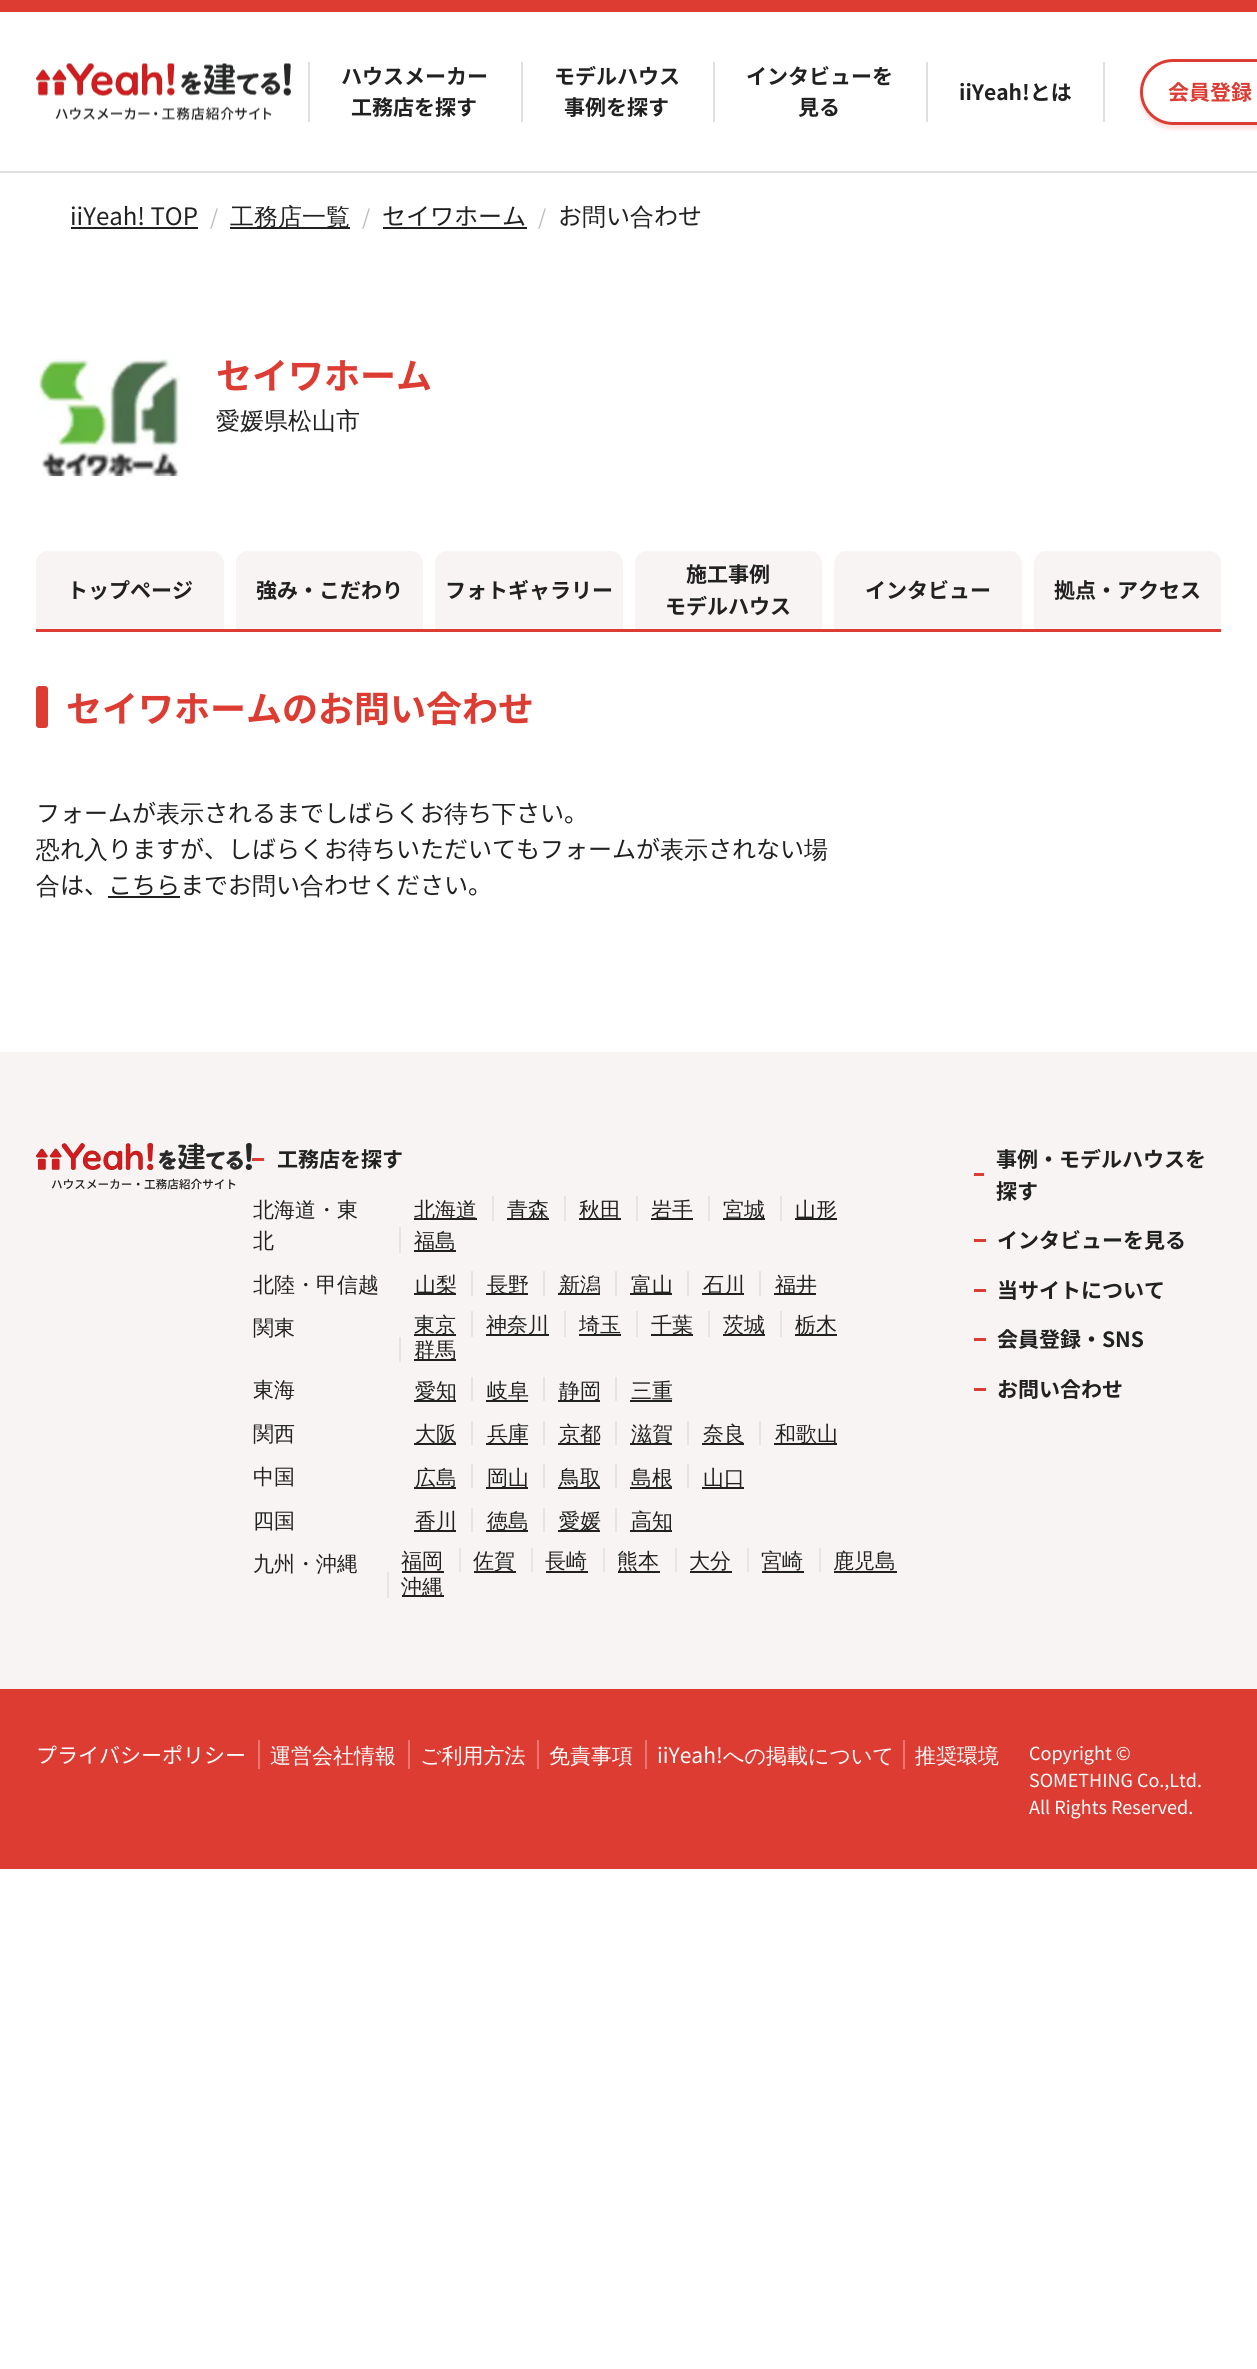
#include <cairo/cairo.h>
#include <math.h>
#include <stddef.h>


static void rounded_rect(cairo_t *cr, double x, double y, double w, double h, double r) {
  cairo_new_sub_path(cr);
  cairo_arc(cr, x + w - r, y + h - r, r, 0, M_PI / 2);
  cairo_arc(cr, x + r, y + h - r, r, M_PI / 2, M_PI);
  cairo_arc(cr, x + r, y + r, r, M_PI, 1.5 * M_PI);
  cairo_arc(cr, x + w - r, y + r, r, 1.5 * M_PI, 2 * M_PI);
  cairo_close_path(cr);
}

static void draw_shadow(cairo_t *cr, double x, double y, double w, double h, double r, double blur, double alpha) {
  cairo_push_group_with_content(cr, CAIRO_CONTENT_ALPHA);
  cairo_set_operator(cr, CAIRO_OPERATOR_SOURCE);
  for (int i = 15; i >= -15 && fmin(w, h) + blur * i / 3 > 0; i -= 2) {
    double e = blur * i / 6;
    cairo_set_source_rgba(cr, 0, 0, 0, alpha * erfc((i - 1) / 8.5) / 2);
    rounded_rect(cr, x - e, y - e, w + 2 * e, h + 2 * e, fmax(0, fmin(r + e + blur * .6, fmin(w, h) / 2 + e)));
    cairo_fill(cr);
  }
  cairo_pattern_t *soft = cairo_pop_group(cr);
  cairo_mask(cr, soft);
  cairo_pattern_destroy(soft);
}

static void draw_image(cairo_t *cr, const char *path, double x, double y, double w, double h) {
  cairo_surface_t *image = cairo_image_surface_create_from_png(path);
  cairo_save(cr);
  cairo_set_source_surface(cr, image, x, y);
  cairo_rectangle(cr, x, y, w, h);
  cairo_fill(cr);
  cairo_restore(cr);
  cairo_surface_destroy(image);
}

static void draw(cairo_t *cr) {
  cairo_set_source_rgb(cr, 1, 1, 1);
  cairo_paint(cr);
  cairo_set_source_rgb(cr, 221 / 255.0, 60 / 255.0, 51 / 255.0);
  cairo_rectangle(cr, 0, 0, 1257, 12);
  cairo_fill(cr);
  cairo_set_source_rgb(cr, 224 / 255.0, 224 / 255.0, 224 / 255.0);
  cairo_rectangle(cr, 0, 171, 1257, 2);
  cairo_fill(cr);
  draw_image(cr, "images/1.png", 36, 63, 255, 58);
  cairo_rectangle(cr, 308, 62, 2, 60);
  cairo_fill(cr);
  cairo_rectangle(cr, 521, 62, 2, 60);
  cairo_fill(cr);
  cairo_rectangle(cr, 713, 62, 2, 60);
  cairo_fill(cr);
  cairo_rectangle(cr, 926, 62, 2, 60);
  cairo_fill(cr);
  cairo_rectangle(cr, 1103, 62, 2, 60);
  cairo_fill(cr);
  cairo_set_source_rgb(cr, 221 / 255.0, 60 / 255.0, 51 / 255.0);
  draw_shadow(cr, 1140, 63, 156, 66, 33, 2, 0.16);
  cairo_set_source_rgb(cr, 1, 1, 1);
  cairo_new_path(cr);
  cairo_move_to(cr, 1173, 59);
  cairo_line_to(cr, 1257, 59);
  cairo_line_to(cr, 1257, 125);
  cairo_line_to(cr, 1173, 125);
  cairo_curve_to(cr, 1155, 125, 1140, 110, 1140, 92);
  cairo_curve_to(cr, 1140, 74, 1155, 59, 1173, 59);
  cairo_close_path(cr);
  cairo_fill(cr);
  rounded_rect(cr, 1141.5, 60.5, 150, 63, 31.5);
  cairo_set_source_rgb(cr, 221 / 255.0, 60 / 255.0, 51 / 255.0);
  cairo_set_line_width(cr, 3);
  cairo_stroke(cr);
  cairo_set_source_rgb(cr, 33 / 255.0, 33 / 255.0, 33 / 255.0);
  cairo_rectangle(cr, 71, 227, 127, 2);
  cairo_fill(cr);
  cairo_rectangle(cr, 230, 227, 120, 2);
  cairo_fill(cr);
  cairo_rectangle(cr, 383, 227, 144, 2);
  cairo_fill(cr);
  draw_image(cr, "images/2.png", 36, 358, 144, 119);
  cairo_set_source_rgb(cr, 221 / 255.0, 60 / 255.0, 51 / 255.0);
  cairo_rectangle(cr, 36, 629, 1185, 3);
  cairo_fill(cr);
  cairo_set_source_rgb(cr, 248 / 255.0, 244 / 255.0, 244 / 255.0);
  cairo_new_path(cr);
  cairo_move_to(cr, 48, 551);
  cairo_line_to(cr, 212, 551);
  cairo_curve_to(cr, 218.5, 551, 224, 556.5, 224, 563);
  cairo_line_to(cr, 224, 629);
  cairo_line_to(cr, 36, 629);
  cairo_line_to(cr, 36, 563);
  cairo_curve_to(cr, 36, 556.5, 41.5, 551, 48, 551);
  cairo_close_path(cr);
  cairo_fill(cr);
  cairo_new_path(cr);
  cairo_move_to(cr, 248, 551);
  cairo_line_to(cr, 411, 551);
  cairo_curve_to(cr, 417.5, 551, 423, 556.5, 423, 563);
  cairo_line_to(cr, 423, 629);
  cairo_line_to(cr, 236, 629);
  cairo_line_to(cr, 236, 563);
  cairo_curve_to(cr, 236, 556.5, 241.5, 551, 248, 551);
  cairo_close_path(cr);
  cairo_fill(cr);
  cairo_new_path(cr);
  cairo_move_to(cr, 447, 551);
  cairo_line_to(cr, 611, 551);
  cairo_curve_to(cr, 617.5, 551, 623, 556.5, 623, 563);
  cairo_line_to(cr, 623, 629);
  cairo_line_to(cr, 435, 629);
  cairo_line_to(cr, 435, 563);
  cairo_curve_to(cr, 435, 556.5, 440.5, 551, 447, 551);
  cairo_close_path(cr);
  cairo_fill(cr);
  cairo_new_path(cr);
  cairo_move_to(cr, 647, 551);
  cairo_line_to(cr, 810, 551);
  cairo_curve_to(cr, 816.5, 551, 822, 556.5, 822, 563);
  cairo_line_to(cr, 822, 629);
  cairo_line_to(cr, 635, 629);
  cairo_line_to(cr, 635, 563);
  cairo_curve_to(cr, 635, 556.5, 640.5, 551, 647, 551);
  cairo_close_path(cr);
  cairo_fill(cr);
  cairo_new_path(cr);
  cairo_move_to(cr, 846, 551);
  cairo_line_to(cr, 1010, 551);
  cairo_curve_to(cr, 1016.5, 551, 1022, 556.5, 1022, 563);
  cairo_line_to(cr, 1022, 629);
  cairo_line_to(cr, 834, 629);
  cairo_line_to(cr, 834, 563);
  cairo_curve_to(cr, 834, 556.5, 839.5, 551, 846, 551);
  cairo_close_path(cr);
  cairo_fill(cr);
  cairo_new_path(cr);
  cairo_move_to(cr, 1046, 551);
  cairo_line_to(cr, 1209, 551);
  cairo_curve_to(cr, 1215.5, 551, 1221, 556.5, 1221, 563);
  cairo_line_to(cr, 1221, 629);
  cairo_line_to(cr, 1034, 629);
  cairo_line_to(cr, 1034, 563);
  cairo_curve_to(cr, 1034, 556.5, 1039.5, 551, 1046, 551);
  cairo_close_path(cr);
  cairo_fill(cr);
  cairo_set_source_rgb(cr, 221 / 255.0, 60 / 255.0, 51 / 255.0);
  rounded_rect(cr, 36, 686, 12, 42, 3);
  cairo_fill(cr);
  cairo_set_source_rgb(cr, 33 / 255.0, 33 / 255.0, 33 / 255.0);
  cairo_rectangle(cr, 108, 896, 72, 2);
  cairo_fill(cr);
  cairo_set_source_rgb(cr, 248 / 255.0, 244 / 255.0, 244 / 255.0);
  cairo_rectangle(cr, 0, 1052, 1257, 637);
  cairo_fill(cr);
  draw_image(cr, "images/3.png", 36, 1143, 216, 47);
  cairo_set_source_rgb(cr, 221 / 255.0, 60 / 255.0, 51 / 255.0);
  cairo_rectangle(cr, 252, 1158, 12, 3);
  cairo_fill(cr);
  cairo_set_source_rgb(cr, 33 / 255.0, 33 / 255.0, 33 / 255.0);
  cairo_rectangle(cr, 414, 1218, 63, 2);
  cairo_fill(cr);
  cairo_set_source_rgb(cr, 230 / 255.0, 228 / 255.0, 228 / 255.0);
  cairo_rectangle(cr, 492, 1196, 2, 25);
  cairo_fill(cr);
  cairo_set_source_rgb(cr, 33 / 255.0, 33 / 255.0, 33 / 255.0);
  cairo_rectangle(cr, 507, 1218, 42, 2);
  cairo_fill(cr);
  cairo_set_source_rgb(cr, 230 / 255.0, 228 / 255.0, 228 / 255.0);
  cairo_rectangle(cr, 564, 1196, 2, 25);
  cairo_fill(cr);
  cairo_set_source_rgb(cr, 33 / 255.0, 33 / 255.0, 33 / 255.0);
  cairo_rectangle(cr, 579, 1218, 42, 2);
  cairo_fill(cr);
  cairo_set_source_rgb(cr, 230 / 255.0, 228 / 255.0, 228 / 255.0);
  cairo_rectangle(cr, 636, 1196, 2, 25);
  cairo_fill(cr);
  cairo_set_source_rgb(cr, 33 / 255.0, 33 / 255.0, 33 / 255.0);
  cairo_rectangle(cr, 651, 1218, 42, 2);
  cairo_fill(cr);
  cairo_set_source_rgb(cr, 230 / 255.0, 228 / 255.0, 228 / 255.0);
  cairo_rectangle(cr, 708, 1196, 2, 25);
  cairo_fill(cr);
  cairo_set_source_rgb(cr, 33 / 255.0, 33 / 255.0, 33 / 255.0);
  cairo_rectangle(cr, 723, 1218, 42, 2);
  cairo_fill(cr);
  cairo_set_source_rgb(cr, 230 / 255.0, 228 / 255.0, 228 / 255.0);
  cairo_rectangle(cr, 780, 1196, 2, 25);
  cairo_fill(cr);
  cairo_set_source_rgb(cr, 33 / 255.0, 33 / 255.0, 33 / 255.0);
  cairo_rectangle(cr, 795, 1218, 42, 2);
  cairo_fill(cr);
  cairo_set_source_rgb(cr, 230 / 255.0, 228 / 255.0, 228 / 255.0);
  cairo_rectangle(cr, 399, 1227, 2, 26);
  cairo_fill(cr);
  cairo_set_source_rgb(cr, 33 / 255.0, 33 / 255.0, 33 / 255.0);
  cairo_rectangle(cr, 414, 1250, 42, 2);
  cairo_fill(cr);
  cairo_rectangle(cr, 414, 1293, 42, 2);
  cairo_fill(cr);
  cairo_set_source_rgb(cr, 230 / 255.0, 228 / 255.0, 228 / 255.0);
  cairo_rectangle(cr, 471, 1271, 2, 25);
  cairo_fill(cr);
  cairo_set_source_rgb(cr, 33 / 255.0, 33 / 255.0, 33 / 255.0);
  cairo_rectangle(cr, 486, 1293, 42, 2);
  cairo_fill(cr);
  cairo_set_source_rgb(cr, 230 / 255.0, 228 / 255.0, 228 / 255.0);
  cairo_rectangle(cr, 543, 1271, 2, 25);
  cairo_fill(cr);
  cairo_set_source_rgb(cr, 33 / 255.0, 33 / 255.0, 33 / 255.0);
  cairo_rectangle(cr, 558, 1293, 42, 2);
  cairo_fill(cr);
  cairo_set_source_rgb(cr, 230 / 255.0, 228 / 255.0, 228 / 255.0);
  cairo_rectangle(cr, 615, 1271, 2, 25);
  cairo_fill(cr);
  cairo_set_source_rgb(cr, 33 / 255.0, 33 / 255.0, 33 / 255.0);
  cairo_rectangle(cr, 630, 1293, 42, 2);
  cairo_fill(cr);
  cairo_set_source_rgb(cr, 230 / 255.0, 228 / 255.0, 228 / 255.0);
  cairo_rectangle(cr, 687, 1271, 2, 25);
  cairo_fill(cr);
  cairo_set_source_rgb(cr, 33 / 255.0, 33 / 255.0, 33 / 255.0);
  cairo_rectangle(cr, 702, 1293, 42, 2);
  cairo_fill(cr);
  cairo_set_source_rgb(cr, 230 / 255.0, 228 / 255.0, 228 / 255.0);
  cairo_rectangle(cr, 759, 1271, 2, 25);
  cairo_fill(cr);
  cairo_set_source_rgb(cr, 33 / 255.0, 33 / 255.0, 33 / 255.0);
  cairo_rectangle(cr, 774, 1293, 42, 2);
  cairo_fill(cr);
  cairo_rectangle(cr, 414, 1334, 42, 2);
  cairo_fill(cr);
  cairo_set_source_rgb(cr, 230 / 255.0, 228 / 255.0, 228 / 255.0);
  cairo_rectangle(cr, 471, 1311, 2, 26);
  cairo_fill(cr);
  cairo_set_source_rgb(cr, 33 / 255.0, 33 / 255.0, 33 / 255.0);
  cairo_rectangle(cr, 486, 1334, 63, 2);
  cairo_fill(cr);
  cairo_set_source_rgb(cr, 230 / 255.0, 228 / 255.0, 228 / 255.0);
  cairo_rectangle(cr, 564, 1311, 2, 26);
  cairo_fill(cr);
  cairo_set_source_rgb(cr, 33 / 255.0, 33 / 255.0, 33 / 255.0);
  cairo_rectangle(cr, 579, 1334, 42, 2);
  cairo_fill(cr);
  cairo_set_source_rgb(cr, 230 / 255.0, 228 / 255.0, 228 / 255.0);
  cairo_rectangle(cr, 636, 1311, 2, 26);
  cairo_fill(cr);
  cairo_set_source_rgb(cr, 33 / 255.0, 33 / 255.0, 33 / 255.0);
  cairo_rectangle(cr, 651, 1334, 42, 2);
  cairo_fill(cr);
  cairo_set_source_rgb(cr, 230 / 255.0, 228 / 255.0, 228 / 255.0);
  cairo_rectangle(cr, 708, 1311, 2, 26);
  cairo_fill(cr);
  cairo_set_source_rgb(cr, 33 / 255.0, 33 / 255.0, 33 / 255.0);
  cairo_rectangle(cr, 723, 1334, 42, 2);
  cairo_fill(cr);
  cairo_set_source_rgb(cr, 230 / 255.0, 228 / 255.0, 228 / 255.0);
  cairo_rectangle(cr, 780, 1311, 2, 26);
  cairo_fill(cr);
  cairo_set_source_rgb(cr, 33 / 255.0, 33 / 255.0, 33 / 255.0);
  cairo_rectangle(cr, 795, 1334, 42, 2);
  cairo_fill(cr);
  cairo_set_source_rgb(cr, 230 / 255.0, 228 / 255.0, 228 / 255.0);
  cairo_rectangle(cr, 399, 1337, 2, 25);
  cairo_fill(cr);
  cairo_set_source_rgb(cr, 33 / 255.0, 33 / 255.0, 33 / 255.0);
  cairo_rectangle(cr, 414, 1359, 42, 2);
  cairo_fill(cr);
  cairo_rectangle(cr, 414, 1400, 42, 2);
  cairo_fill(cr);
  cairo_set_source_rgb(cr, 230 / 255.0, 228 / 255.0, 228 / 255.0);
  cairo_rectangle(cr, 471, 1377, 2, 24);
  cairo_fill(cr);
  cairo_set_source_rgb(cr, 33 / 255.0, 33 / 255.0, 33 / 255.0);
  cairo_rectangle(cr, 486, 1400, 42, 2);
  cairo_fill(cr);
  cairo_set_source_rgb(cr, 230 / 255.0, 228 / 255.0, 228 / 255.0);
  cairo_rectangle(cr, 543, 1377, 2, 24);
  cairo_fill(cr);
  cairo_set_source_rgb(cr, 33 / 255.0, 33 / 255.0, 33 / 255.0);
  cairo_rectangle(cr, 558, 1400, 42, 2);
  cairo_fill(cr);
  cairo_set_source_rgb(cr, 230 / 255.0, 228 / 255.0, 228 / 255.0);
  cairo_rectangle(cr, 615, 1377, 2, 24);
  cairo_fill(cr);
  cairo_set_source_rgb(cr, 33 / 255.0, 33 / 255.0, 33 / 255.0);
  cairo_rectangle(cr, 630, 1400, 42, 2);
  cairo_fill(cr);
  cairo_rectangle(cr, 414, 1443, 42, 2);
  cairo_fill(cr);
  cairo_set_source_rgb(cr, 230 / 255.0, 228 / 255.0, 228 / 255.0);
  cairo_rectangle(cr, 471, 1421, 2, 24);
  cairo_fill(cr);
  cairo_set_source_rgb(cr, 33 / 255.0, 33 / 255.0, 33 / 255.0);
  cairo_rectangle(cr, 486, 1443, 42, 2);
  cairo_fill(cr);
  cairo_set_source_rgb(cr, 230 / 255.0, 228 / 255.0, 228 / 255.0);
  cairo_rectangle(cr, 543, 1421, 2, 24);
  cairo_fill(cr);
  cairo_set_source_rgb(cr, 33 / 255.0, 33 / 255.0, 33 / 255.0);
  cairo_rectangle(cr, 558, 1443, 42, 2);
  cairo_fill(cr);
  cairo_set_source_rgb(cr, 230 / 255.0, 228 / 255.0, 228 / 255.0);
  cairo_rectangle(cr, 615, 1421, 2, 24);
  cairo_fill(cr);
  cairo_set_source_rgb(cr, 33 / 255.0, 33 / 255.0, 33 / 255.0);
  cairo_rectangle(cr, 630, 1443, 42, 2);
  cairo_fill(cr);
  cairo_set_source_rgb(cr, 230 / 255.0, 228 / 255.0, 228 / 255.0);
  cairo_rectangle(cr, 687, 1421, 2, 24);
  cairo_fill(cr);
  cairo_set_source_rgb(cr, 33 / 255.0, 33 / 255.0, 33 / 255.0);
  cairo_rectangle(cr, 702, 1443, 42, 2);
  cairo_fill(cr);
  cairo_set_source_rgb(cr, 230 / 255.0, 228 / 255.0, 228 / 255.0);
  cairo_rectangle(cr, 759, 1421, 2, 24);
  cairo_fill(cr);
  cairo_set_source_rgb(cr, 33 / 255.0, 33 / 255.0, 33 / 255.0);
  cairo_rectangle(cr, 774, 1443, 63, 2);
  cairo_fill(cr);
  cairo_rectangle(cr, 414, 1487, 42, 2);
  cairo_fill(cr);
  cairo_set_source_rgb(cr, 230 / 255.0, 228 / 255.0, 228 / 255.0);
  cairo_rectangle(cr, 471, 1464, 2, 24);
  cairo_fill(cr);
  cairo_set_source_rgb(cr, 33 / 255.0, 33 / 255.0, 33 / 255.0);
  cairo_rectangle(cr, 486, 1487, 42, 2);
  cairo_fill(cr);
  cairo_set_source_rgb(cr, 230 / 255.0, 228 / 255.0, 228 / 255.0);
  cairo_rectangle(cr, 543, 1464, 2, 24);
  cairo_fill(cr);
  cairo_set_source_rgb(cr, 33 / 255.0, 33 / 255.0, 33 / 255.0);
  cairo_rectangle(cr, 558, 1487, 42, 2);
  cairo_fill(cr);
  cairo_set_source_rgb(cr, 230 / 255.0, 228 / 255.0, 228 / 255.0);
  cairo_rectangle(cr, 615, 1464, 2, 24);
  cairo_fill(cr);
  cairo_set_source_rgb(cr, 33 / 255.0, 33 / 255.0, 33 / 255.0);
  cairo_rectangle(cr, 630, 1487, 42, 2);
  cairo_fill(cr);
  cairo_set_source_rgb(cr, 230 / 255.0, 228 / 255.0, 228 / 255.0);
  cairo_rectangle(cr, 687, 1464, 2, 24);
  cairo_fill(cr);
  cairo_set_source_rgb(cr, 33 / 255.0, 33 / 255.0, 33 / 255.0);
  cairo_rectangle(cr, 702, 1487, 42, 2);
  cairo_fill(cr);
  cairo_rectangle(cr, 414, 1530, 42, 2);
  cairo_fill(cr);
  cairo_set_source_rgb(cr, 230 / 255.0, 228 / 255.0, 228 / 255.0);
  cairo_rectangle(cr, 471, 1508, 2, 24);
  cairo_fill(cr);
  cairo_set_source_rgb(cr, 33 / 255.0, 33 / 255.0, 33 / 255.0);
  cairo_rectangle(cr, 486, 1530, 42, 2);
  cairo_fill(cr);
  cairo_set_source_rgb(cr, 230 / 255.0, 228 / 255.0, 228 / 255.0);
  cairo_rectangle(cr, 543, 1508, 2, 24);
  cairo_fill(cr);
  cairo_set_source_rgb(cr, 33 / 255.0, 33 / 255.0, 33 / 255.0);
  cairo_rectangle(cr, 558, 1530, 42, 2);
  cairo_fill(cr);
  cairo_set_source_rgb(cr, 230 / 255.0, 228 / 255.0, 228 / 255.0);
  cairo_rectangle(cr, 615, 1508, 2, 24);
  cairo_fill(cr);
  cairo_set_source_rgb(cr, 33 / 255.0, 33 / 255.0, 33 / 255.0);
  cairo_rectangle(cr, 630, 1530, 42, 2);
  cairo_fill(cr);
  cairo_rectangle(cr, 402, 1571, 42, 2);
  cairo_fill(cr);
  cairo_set_source_rgb(cr, 230 / 255.0, 228 / 255.0, 228 / 255.0);
  cairo_rectangle(cr, 459, 1548, 2, 24);
  cairo_fill(cr);
  cairo_set_source_rgb(cr, 33 / 255.0, 33 / 255.0, 33 / 255.0);
  cairo_rectangle(cr, 474, 1571, 42, 2);
  cairo_fill(cr);
  cairo_set_source_rgb(cr, 230 / 255.0, 228 / 255.0, 228 / 255.0);
  cairo_rectangle(cr, 531, 1548, 2, 24);
  cairo_fill(cr);
  cairo_set_source_rgb(cr, 33 / 255.0, 33 / 255.0, 33 / 255.0);
  cairo_rectangle(cr, 546, 1571, 42, 2);
  cairo_fill(cr);
  cairo_set_source_rgb(cr, 230 / 255.0, 228 / 255.0, 228 / 255.0);
  cairo_rectangle(cr, 603, 1548, 2, 24);
  cairo_fill(cr);
  cairo_set_source_rgb(cr, 33 / 255.0, 33 / 255.0, 33 / 255.0);
  cairo_rectangle(cr, 618, 1571, 42, 2);
  cairo_fill(cr);
  cairo_set_source_rgb(cr, 230 / 255.0, 228 / 255.0, 228 / 255.0);
  cairo_rectangle(cr, 675, 1548, 2, 24);
  cairo_fill(cr);
  cairo_set_source_rgb(cr, 33 / 255.0, 33 / 255.0, 33 / 255.0);
  cairo_rectangle(cr, 690, 1571, 42, 2);
  cairo_fill(cr);
  cairo_set_source_rgb(cr, 230 / 255.0, 228 / 255.0, 228 / 255.0);
  cairo_rectangle(cr, 747, 1548, 2, 24);
  cairo_fill(cr);
  cairo_set_source_rgb(cr, 33 / 255.0, 33 / 255.0, 33 / 255.0);
  cairo_rectangle(cr, 762, 1571, 42, 2);
  cairo_fill(cr);
  cairo_set_source_rgb(cr, 230 / 255.0, 228 / 255.0, 228 / 255.0);
  cairo_rectangle(cr, 819, 1548, 2, 24);
  cairo_fill(cr);
  cairo_set_source_rgb(cr, 33 / 255.0, 33 / 255.0, 33 / 255.0);
  cairo_rectangle(cr, 834, 1571, 63, 2);
  cairo_fill(cr);
  cairo_set_source_rgb(cr, 230 / 255.0, 228 / 255.0, 228 / 255.0);
  cairo_rectangle(cr, 387, 1572, 2, 26);
  cairo_fill(cr);
  cairo_set_source_rgb(cr, 33 / 255.0, 33 / 255.0, 33 / 255.0);
  cairo_rectangle(cr, 402, 1595, 42, 2);
  cairo_fill(cr);
  cairo_set_source_rgb(cr, 221 / 255.0, 60 / 255.0, 51 / 255.0);
  cairo_rectangle(cr, 974, 1173, 10, 3);
  cairo_fill(cr);
  cairo_rectangle(cr, 974, 1239, 12, 3);
  cairo_fill(cr);
  cairo_rectangle(cr, 974, 1289, 12, 3);
  cairo_fill(cr);
  cairo_rectangle(cr, 974, 1338, 12, 3);
  cairo_fill(cr);
  cairo_rectangle(cr, 974, 1388, 12, 3);
  cairo_fill(cr);
  cairo_rectangle(cr, 0, 1689, 1257, 180);
  cairo_fill(cr);
  cairo_set_source_rgb(cr, 231 / 255.0, 119 / 255.0, 112 / 255.0);
  cairo_rectangle(cr, 258, 1740, 2, 29);
  cairo_fill(cr);
  cairo_rectangle(cr, 408, 1740, 2, 29);
  cairo_fill(cr);
  cairo_rectangle(cr, 537, 1740, 2, 29);
  cairo_fill(cr);
  cairo_rectangle(cr, 645, 1740, 2, 29);
  cairo_fill(cr);
  cairo_rectangle(cr, 903, 1740, 2, 29);
  cairo_fill(cr);
  cairo_select_font_face(cr, "Noto Sans JP", CAIRO_FONT_SLANT_NORMAL, CAIRO_FONT_WEIGHT_BOLD);
  cairo_set_font_size(cr, 21);
  cairo_set_source_rgb(cr, 33 / 255.0, 33 / 255.0, 33 / 255.0);
  cairo_move_to(cr, 341, 84);
  cairo_show_text(cr, "ハウスメーカー");
  cairo_select_font_face(cr, "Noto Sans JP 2", CAIRO_FONT_SLANT_NORMAL, CAIRO_FONT_WEIGHT_BOLD);
  cairo_move_to(cr, 351, 115);
  cairo_show_text(cr, "工務店を探す");
  cairo_move_to(cr, 554, 84);
  cairo_show_text(cr, "モデルハウス");
  cairo_move_to(cr, 564, 115);
  cairo_show_text(cr, "事例を探す");
  cairo_select_font_face(cr, "Noto Sans JP", CAIRO_FONT_SLANT_NORMAL, CAIRO_FONT_WEIGHT_BOLD);
  cairo_move_to(cr, 746, 84);
  cairo_show_text(cr, "インタビューを");
  cairo_select_font_face(cr, "Noto Sans JP 2", CAIRO_FONT_SLANT_NORMAL, CAIRO_FONT_WEIGHT_BOLD);
  cairo_move_to(cr, 798, 115);
  cairo_show_text(cr, "見る");
  cairo_select_font_face(cr, "Noto Sans JP", CAIRO_FONT_SLANT_NORMAL, CAIRO_FONT_WEIGHT_BOLD);
  cairo_move_to(cr, 959, 100);
  cairo_show_text(cr, "iiYeah!とは");
  cairo_select_font_face(cr, "Noto Sans JP 2", CAIRO_FONT_SLANT_NORMAL, CAIRO_FONT_WEIGHT_BOLD);
  cairo_set_source_rgb(cr, 221 / 255.0, 60 / 255.0, 51 / 255.0);
  cairo_move_to(cr, 1168, 100);
  cairo_show_text(cr, "会員登録");
  cairo_select_font_face(cr, "Noto Sans JP", CAIRO_FONT_SLANT_NORMAL, CAIRO_FONT_WEIGHT_NORMAL);
  cairo_set_font_size(cr, 24);
  cairo_set_source_rgb(cr, 33 / 255.0, 33 / 255.0, 33 / 255.0);
  cairo_move_to(cr, 70, 225);
  cairo_show_text(cr, "iiYeah! TOP");
  cairo_set_font_size(cr, 21);
  cairo_set_source_rgb(cr, 189 / 255.0, 189 / 255.0, 189 / 255.0);
  cairo_move_to(cr, 210, 225);
  cairo_show_text(cr, "/");
  cairo_select_font_face(cr, "WenQuanYi Zen Hei Medium", CAIRO_FONT_SLANT_NORMAL, CAIRO_FONT_WEIGHT_NORMAL);
  cairo_set_font_size(cr, 24);
  cairo_set_source_rgb(cr, 33 / 255.0, 33 / 255.0, 33 / 255.0);
  cairo_move_to(cr, 230, 225);
  cairo_show_text(cr, "工務店一覧");
  cairo_select_font_face(cr, "Noto Sans JP", CAIRO_FONT_SLANT_NORMAL, CAIRO_FONT_WEIGHT_NORMAL);
  cairo_set_font_size(cr, 21);
  cairo_set_source_rgb(cr, 189 / 255.0, 189 / 255.0, 189 / 255.0);
  cairo_move_to(cr, 362, 225);
  cairo_show_text(cr, "/");
  cairo_set_font_size(cr, 24);
  cairo_set_source_rgb(cr, 33 / 255.0, 33 / 255.0, 33 / 255.0);
  cairo_move_to(cr, 382, 225);
  cairo_show_text(cr, "セイワホーム");
  cairo_set_font_size(cr, 21);
  cairo_set_source_rgb(cr, 189 / 255.0, 189 / 255.0, 189 / 255.0);
  cairo_move_to(cr, 538, 225);
  cairo_show_text(cr, "/");
  cairo_set_font_size(cr, 24);
  cairo_set_source_rgb(cr, 33 / 255.0, 33 / 255.0, 33 / 255.0);
  cairo_move_to(cr, 558, 225);
  cairo_show_text(cr, "お");
  cairo_select_font_face(cr, "WenQuanYi Zen Hei Medium", CAIRO_FONT_SLANT_NORMAL, CAIRO_FONT_WEIGHT_NORMAL);
  cairo_move_to(cr, 582, 225);
  cairo_show_text(cr, "問");
  cairo_select_font_face(cr, "Noto Sans JP", CAIRO_FONT_SLANT_NORMAL, CAIRO_FONT_WEIGHT_NORMAL);
  cairo_move_to(cr, 606, 225);
  cairo_show_text(cr, "い");
  cairo_select_font_face(cr, "WenQuanYi Zen Hei Medium", CAIRO_FONT_SLANT_NORMAL, CAIRO_FONT_WEIGHT_NORMAL);
  cairo_move_to(cr, 630, 225);
  cairo_show_text(cr, "合");
  cairo_select_font_face(cr, "Noto Sans JP", CAIRO_FONT_SLANT_NORMAL, CAIRO_FONT_WEIGHT_NORMAL);
  cairo_move_to(cr, 654, 225);
  cairo_show_text(cr, "わせ");
  cairo_select_font_face(cr, "Noto Sans JP", CAIRO_FONT_SLANT_NORMAL, CAIRO_FONT_WEIGHT_BOLD);
  cairo_set_font_size(cr, 36);
  cairo_set_source_rgb(cr, 221 / 255.0, 60 / 255.0, 51 / 255.0);
  cairo_move_to(cr, 216, 389);
  cairo_show_text(cr, "セイワホーム");
  cairo_select_font_face(cr, "WenQuanYi Zen Hei Medium", CAIRO_FONT_SLANT_NORMAL, CAIRO_FONT_WEIGHT_NORMAL);
  cairo_set_font_size(cr, 24);
  cairo_set_source_rgb(cr, 33 / 255.0, 33 / 255.0, 33 / 255.0);
  cairo_move_to(cr, 216, 429);
  cairo_show_text(cr, "愛媛県松山市");
  cairo_select_font_face(cr, "Noto Sans JP", CAIRO_FONT_SLANT_NORMAL, CAIRO_FONT_WEIGHT_BOLD);
  cairo_set_font_size(cr, 21);
  cairo_move_to(cr, 67, 598);
  cairo_show_text(cr, "トップページ");
  cairo_select_font_face(cr, "Noto Sans JP 2", CAIRO_FONT_SLANT_NORMAL, CAIRO_FONT_WEIGHT_BOLD);
  cairo_move_to(cr, 256, 598);
  cairo_show_text(cr, "強み・こだわり");
  cairo_select_font_face(cr, "Noto Sans JP", CAIRO_FONT_SLANT_NORMAL, CAIRO_FONT_WEIGHT_BOLD);
  cairo_move_to(cr, 445, 598);
  cairo_show_text(cr, "フォトギャラリー");
  cairo_select_font_face(cr, "Noto Sans JP 2", CAIRO_FONT_SLANT_NORMAL, CAIRO_FONT_WEIGHT_BOLD);
  cairo_move_to(cr, 686, 582);
  cairo_show_text(cr, "施工事例");
  cairo_move_to(cr, 665, 614);
  cairo_show_text(cr, "モデルハウス");
  cairo_select_font_face(cr, "Noto Sans JP", CAIRO_FONT_SLANT_NORMAL, CAIRO_FONT_WEIGHT_BOLD);
  cairo_move_to(cr, 865, 598);
  cairo_show_text(cr, "インタビュー");
  cairo_select_font_face(cr, "Noto Sans JP 2", CAIRO_FONT_SLANT_NORMAL, CAIRO_FONT_WEIGHT_BOLD);
  cairo_move_to(cr, 1054, 598);
  cairo_show_text(cr, "拠点・アクセス");
  cairo_set_font_size(cr, 36);
  cairo_set_source_rgb(cr, 221 / 255.0, 60 / 255.0, 51 / 255.0);
  cairo_move_to(cr, 66, 722);
  cairo_show_text(cr, "セイワホームのお問い合わせ");
  cairo_select_font_face(cr, "Noto Sans JP", CAIRO_FONT_SLANT_NORMAL, CAIRO_FONT_WEIGHT_NORMAL);
  cairo_set_font_size(cr, 24);
  cairo_set_source_rgb(cr, 33 / 255.0, 33 / 255.0, 33 / 255.0);
  cairo_move_to(cr, 36, 822);
  cairo_show_text(cr, "フォームが");
  cairo_select_font_face(cr, "WenQuanYi Zen Hei Medium", CAIRO_FONT_SLANT_NORMAL, CAIRO_FONT_WEIGHT_NORMAL);
  cairo_move_to(cr, 156, 822);
  cairo_show_text(cr, "表示");
  cairo_select_font_face(cr, "Noto Sans JP", CAIRO_FONT_SLANT_NORMAL, CAIRO_FONT_WEIGHT_NORMAL);
  cairo_move_to(cr, 204, 822);
  cairo_show_text(cr, "されるまでしばらくお");
  cairo_select_font_face(cr, "WenQuanYi Zen Hei Medium", CAIRO_FONT_SLANT_NORMAL, CAIRO_FONT_WEIGHT_NORMAL);
  cairo_move_to(cr, 444, 822);
  cairo_show_text(cr, "待");
  cairo_select_font_face(cr, "Noto Sans JP", CAIRO_FONT_SLANT_NORMAL, CAIRO_FONT_WEIGHT_NORMAL);
  cairo_move_to(cr, 468, 822);
  cairo_show_text(cr, "ち");
  cairo_select_font_face(cr, "WenQuanYi Zen Hei Medium", CAIRO_FONT_SLANT_NORMAL, CAIRO_FONT_WEIGHT_NORMAL);
  cairo_move_to(cr, 492, 822);
  cairo_show_text(cr, "下");
  cairo_select_font_face(cr, "Noto Sans JP", CAIRO_FONT_SLANT_NORMAL, CAIRO_FONT_WEIGHT_NORMAL);
  cairo_move_to(cr, 516, 822);
  cairo_show_text(cr, "さい。");
  cairo_select_font_face(cr, "WenQuanYi Zen Hei Medium", CAIRO_FONT_SLANT_NORMAL, CAIRO_FONT_WEIGHT_NORMAL);
  cairo_move_to(cr, 36, 858);
  cairo_show_text(cr, "恐");
  cairo_select_font_face(cr, "Noto Sans JP", CAIRO_FONT_SLANT_NORMAL, CAIRO_FONT_WEIGHT_NORMAL);
  cairo_move_to(cr, 60, 858);
  cairo_show_text(cr, "れ");
  cairo_select_font_face(cr, "WenQuanYi Zen Hei Medium", CAIRO_FONT_SLANT_NORMAL, CAIRO_FONT_WEIGHT_NORMAL);
  cairo_move_to(cr, 84, 858);
  cairo_show_text(cr, "入");
  cairo_select_font_face(cr, "Noto Sans JP", CAIRO_FONT_SLANT_NORMAL, CAIRO_FONT_WEIGHT_NORMAL);
  cairo_move_to(cr, 108, 858);
  cairo_show_text(cr, "りますが、しばらくお");
  cairo_select_font_face(cr, "WenQuanYi Zen Hei Medium", CAIRO_FONT_SLANT_NORMAL, CAIRO_FONT_WEIGHT_NORMAL);
  cairo_move_to(cr, 348, 858);
  cairo_show_text(cr, "待");
  cairo_select_font_face(cr, "Noto Sans JP", CAIRO_FONT_SLANT_NORMAL, CAIRO_FONT_WEIGHT_NORMAL);
  cairo_move_to(cr, 372, 858);
  cairo_show_text(cr, "ちいただいてもフォームが");
  cairo_select_font_face(cr, "WenQuanYi Zen Hei Medium", CAIRO_FONT_SLANT_NORMAL, CAIRO_FONT_WEIGHT_NORMAL);
  cairo_move_to(cr, 660, 858);
  cairo_show_text(cr, "表示");
  cairo_select_font_face(cr, "Noto Sans JP", CAIRO_FONT_SLANT_NORMAL, CAIRO_FONT_WEIGHT_NORMAL);
  cairo_move_to(cr, 708, 858);
  cairo_show_text(cr, "されない");
  cairo_select_font_face(cr, "WenQuanYi Zen Hei Medium", CAIRO_FONT_SLANT_NORMAL, CAIRO_FONT_WEIGHT_NORMAL);
  cairo_move_to(cr, 804, 858);
  cairo_show_text(cr, "場");
  cairo_move_to(cr, 36, 894);
  cairo_show_text(cr, "合");
  cairo_select_font_face(cr, "Noto Sans JP", CAIRO_FONT_SLANT_NORMAL, CAIRO_FONT_WEIGHT_NORMAL);
  cairo_move_to(cr, 60, 894);
  cairo_show_text(cr, "は、こちらまでお");
  cairo_select_font_face(cr, "WenQuanYi Zen Hei Medium", CAIRO_FONT_SLANT_NORMAL, CAIRO_FONT_WEIGHT_NORMAL);
  cairo_move_to(cr, 252, 894);
  cairo_show_text(cr, "問");
  cairo_select_font_face(cr, "Noto Sans JP", CAIRO_FONT_SLANT_NORMAL, CAIRO_FONT_WEIGHT_NORMAL);
  cairo_move_to(cr, 276, 894);
  cairo_show_text(cr, "い");
  cairo_select_font_face(cr, "WenQuanYi Zen Hei Medium", CAIRO_FONT_SLANT_NORMAL, CAIRO_FONT_WEIGHT_NORMAL);
  cairo_move_to(cr, 300, 894);
  cairo_show_text(cr, "合");
  cairo_select_font_face(cr, "Noto Sans JP", CAIRO_FONT_SLANT_NORMAL, CAIRO_FONT_WEIGHT_NORMAL);
  cairo_move_to(cr, 324, 894);
  cairo_show_text(cr, "わせください。");
  cairo_select_font_face(cr, "Noto Sans JP 2", CAIRO_FONT_SLANT_NORMAL, CAIRO_FONT_WEIGHT_BOLD);
  cairo_set_font_size(cr, 21);
  cairo_move_to(cr, 277, 1167);
  cairo_show_text(cr, "工務店を探す");
  cairo_select_font_face(cr, "WenQuanYi Zen Hei Medium", CAIRO_FONT_SLANT_NORMAL, CAIRO_FONT_WEIGHT_NORMAL);
  cairo_move_to(cr, 253, 1217);
  cairo_show_text(cr, "北海道・東");
  cairo_move_to(cr, 253, 1248);
  cairo_show_text(cr, "北");
  cairo_move_to(cr, 414, 1217);
  cairo_show_text(cr, "北海道");
  cairo_move_to(cr, 507, 1217);
  cairo_show_text(cr, "青森");
  cairo_move_to(cr, 579, 1217);
  cairo_show_text(cr, "秋田");
  cairo_move_to(cr, 651, 1217);
  cairo_show_text(cr, "岩手");
  cairo_move_to(cr, 723, 1217);
  cairo_show_text(cr, "宮城");
  cairo_move_to(cr, 795, 1217);
  cairo_show_text(cr, "山形");
  cairo_move_to(cr, 414, 1248);
  cairo_show_text(cr, "福島");
  cairo_move_to(cr, 253, 1292);
  cairo_show_text(cr, "北陸・甲信越");
  cairo_move_to(cr, 415, 1292);
  cairo_show_text(cr, "山梨");
  cairo_move_to(cr, 487, 1292);
  cairo_show_text(cr, "長野");
  cairo_move_to(cr, 559, 1292);
  cairo_show_text(cr, "新潟");
  cairo_move_to(cr, 631, 1292);
  cairo_show_text(cr, "富山");
  cairo_move_to(cr, 703, 1292);
  cairo_show_text(cr, "石川");
  cairo_move_to(cr, 775, 1292);
  cairo_show_text(cr, "福井");
  cairo_move_to(cr, 253, 1335);
  cairo_show_text(cr, "関東");
  cairo_move_to(cr, 414, 1332);
  cairo_show_text(cr, "東京");
  cairo_move_to(cr, 486, 1332);
  cairo_show_text(cr, "神奈川");
  cairo_move_to(cr, 579, 1332);
  cairo_show_text(cr, "埼玉");
  cairo_move_to(cr, 651, 1332);
  cairo_show_text(cr, "千葉");
  cairo_move_to(cr, 723, 1332);
  cairo_show_text(cr, "茨城");
  cairo_move_to(cr, 795, 1332);
  cairo_show_text(cr, "栃木");
  cairo_move_to(cr, 414, 1357);
  cairo_show_text(cr, "群馬");
  cairo_move_to(cr, 253, 1397);
  cairo_show_text(cr, "東海");
  cairo_move_to(cr, 415, 1398);
  cairo_show_text(cr, "愛知");
  cairo_move_to(cr, 487, 1398);
  cairo_show_text(cr, "岐阜");
  cairo_move_to(cr, 559, 1398);
  cairo_show_text(cr, "静岡");
  cairo_move_to(cr, 631, 1398);
  cairo_show_text(cr, "三重");
  cairo_move_to(cr, 253, 1441);
  cairo_show_text(cr, "関西");
  cairo_move_to(cr, 415, 1441);
  cairo_show_text(cr, "大阪");
  cairo_move_to(cr, 487, 1441);
  cairo_show_text(cr, "兵庫");
  cairo_move_to(cr, 559, 1441);
  cairo_show_text(cr, "京都");
  cairo_move_to(cr, 631, 1441);
  cairo_show_text(cr, "滋賀");
  cairo_move_to(cr, 703, 1441);
  cairo_show_text(cr, "奈良");
  cairo_move_to(cr, 775, 1441);
  cairo_show_text(cr, "和歌山");
  cairo_move_to(cr, 253, 1484);
  cairo_show_text(cr, "中国");
  cairo_move_to(cr, 415, 1485);
  cairo_show_text(cr, "広島");
  cairo_move_to(cr, 487, 1485);
  cairo_show_text(cr, "岡山");
  cairo_move_to(cr, 559, 1485);
  cairo_show_text(cr, "鳥取");
  cairo_move_to(cr, 631, 1485);
  cairo_show_text(cr, "島根");
  cairo_move_to(cr, 703, 1485);
  cairo_show_text(cr, "山口");
  cairo_move_to(cr, 253, 1528);
  cairo_show_text(cr, "四国");
  cairo_move_to(cr, 415, 1528);
  cairo_show_text(cr, "香川");
  cairo_move_to(cr, 487, 1528);
  cairo_show_text(cr, "徳島");
  cairo_move_to(cr, 559, 1528);
  cairo_show_text(cr, "愛媛");
  cairo_move_to(cr, 631, 1528);
  cairo_show_text(cr, "高知");
  cairo_move_to(cr, 253, 1571);
  cairo_show_text(cr, "九州・沖縄");
  cairo_move_to(cr, 401, 1568);
  cairo_show_text(cr, "福岡");
  cairo_move_to(cr, 473, 1568);
  cairo_show_text(cr, "佐賀");
  cairo_move_to(cr, 545, 1568);
  cairo_show_text(cr, "長崎");
  cairo_move_to(cr, 617, 1568);
  cairo_show_text(cr, "熊本");
  cairo_move_to(cr, 689, 1568);
  cairo_show_text(cr, "大分");
  cairo_move_to(cr, 761, 1568);
  cairo_show_text(cr, "宮崎");
  cairo_move_to(cr, 833, 1568);
  cairo_show_text(cr, "鹿児島");
  cairo_move_to(cr, 401, 1594);
  cairo_show_text(cr, "沖縄");
  cairo_select_font_face(cr, "Noto Sans JP 2", CAIRO_FONT_SLANT_NORMAL, CAIRO_FONT_WEIGHT_BOLD);
  cairo_move_to(cr, 996, 1167);
  cairo_show_text(cr, "事例・モデルハウスを");
  cairo_move_to(cr, 996, 1199);
  cairo_show_text(cr, "探す");
  cairo_move_to(cr, 997, 1248);
  cairo_show_text(cr, "インタビューを見る");
  cairo_move_to(cr, 997, 1298);
  cairo_show_text(cr, "当サイトについて");
  cairo_move_to(cr, 997, 1347);
  cairo_show_text(cr, "会員登録・");
  cairo_select_font_face(cr, "Noto Sans JP", CAIRO_FONT_SLANT_NORMAL, CAIRO_FONT_WEIGHT_BOLD);
  cairo_move_to(cr, 1102, 1347);
  cairo_show_text(cr, "SNS");
  cairo_select_font_face(cr, "Noto Sans JP 2", CAIRO_FONT_SLANT_NORMAL, CAIRO_FONT_WEIGHT_BOLD);
  cairo_move_to(cr, 997, 1397);
  cairo_show_text(cr, "お問い合わせ");
  cairo_select_font_face(cr, "Noto Sans JP", CAIRO_FONT_SLANT_NORMAL, CAIRO_FONT_WEIGHT_NORMAL);
  cairo_set_source_rgb(cr, 1, 1, 1);
  cairo_move_to(cr, 36, 1763);
  cairo_show_text(cr, "プライバシーポリシー");
  cairo_select_font_face(cr, "WenQuanYi Zen Hei Medium", CAIRO_FONT_SLANT_NORMAL, CAIRO_FONT_WEIGHT_NORMAL);
  cairo_move_to(cr, 270, 1763);
  cairo_show_text(cr, "運営会社情報");
  cairo_move_to(cr, 420, 1763);
  cairo_show_text(cr, "ご利用方法");
  cairo_move_to(cr, 549, 1763);
  cairo_show_text(cr, "免責事項");
  cairo_select_font_face(cr, "Noto Sans JP", CAIRO_FONT_SLANT_NORMAL, CAIRO_FONT_WEIGHT_NORMAL);
  cairo_move_to(cr, 657, 1763);
  cairo_show_text(cr, "iiYeah!");
  cairo_select_font_face(cr, "WenQuanYi Zen Hei Medium", CAIRO_FONT_SLANT_NORMAL, CAIRO_FONT_WEIGHT_NORMAL);
  cairo_move_to(cr, 723, 1763);
  cairo_show_text(cr, "への掲載について");
  cairo_move_to(cr, 915, 1763);
  cairo_show_text(cr, "推奨環境");
  cairo_select_font_face(cr, "Noto Sans JP", CAIRO_FONT_SLANT_NORMAL, CAIRO_FONT_WEIGHT_NORMAL);
  cairo_set_font_size(cr, 18);
  cairo_move_to(cr, 1029, 1760);
  cairo_show_text(cr, "Copyright ©");
  cairo_move_to(cr, 1029, 1787);
  cairo_show_text(cr, "SOMETHING Co.,Ltd.");
  cairo_move_to(cr, 1029, 1814);
  cairo_show_text(cr, "All Rights Reserved.");
}

int main(void) {
  cairo_surface_t *surface = cairo_image_surface_create(CAIRO_FORMAT_RGB24, 1257, 2369);
  cairo_t *cr = cairo_create(surface);
  cairo_font_options_t *options = cairo_font_options_create();
  cairo_font_options_set_hint_metrics(options, CAIRO_HINT_METRICS_OFF);
  cairo_font_options_set_hint_style(options, CAIRO_HINT_STYLE_NONE);
  cairo_set_font_options(cr, options);
  cairo_set_miter_limit(cr, 4);
  draw(cr);
  cairo_surface_write_to_png(surface, "out.png");
  cairo_font_options_destroy(options);
  cairo_destroy(cr);
  cairo_surface_destroy(surface);
  return 0;
}
